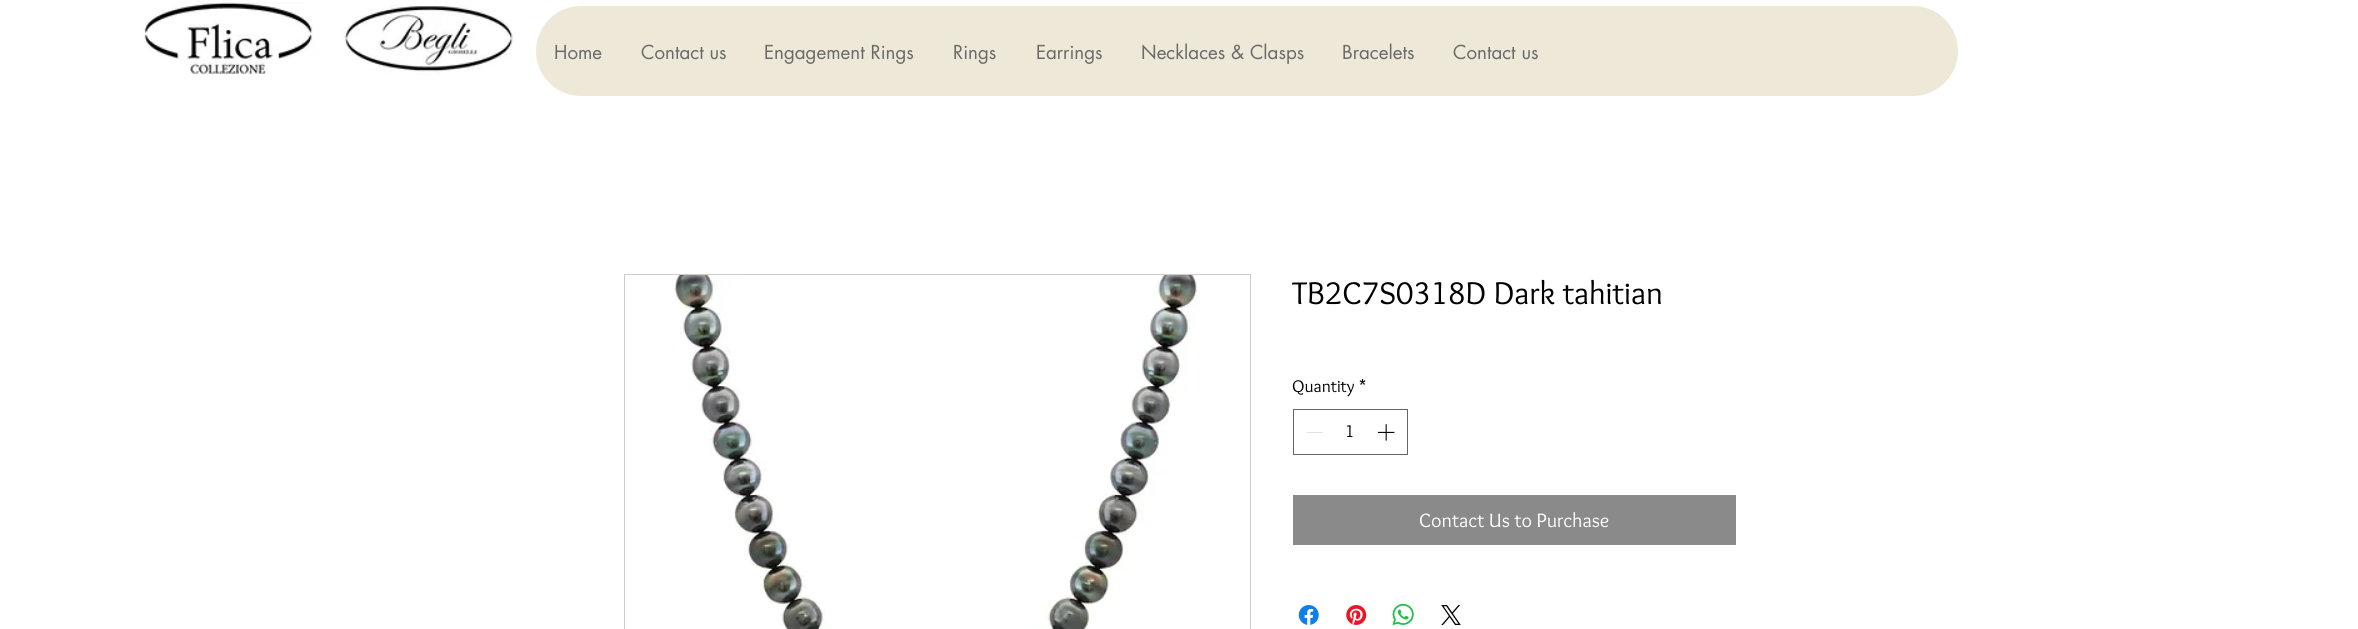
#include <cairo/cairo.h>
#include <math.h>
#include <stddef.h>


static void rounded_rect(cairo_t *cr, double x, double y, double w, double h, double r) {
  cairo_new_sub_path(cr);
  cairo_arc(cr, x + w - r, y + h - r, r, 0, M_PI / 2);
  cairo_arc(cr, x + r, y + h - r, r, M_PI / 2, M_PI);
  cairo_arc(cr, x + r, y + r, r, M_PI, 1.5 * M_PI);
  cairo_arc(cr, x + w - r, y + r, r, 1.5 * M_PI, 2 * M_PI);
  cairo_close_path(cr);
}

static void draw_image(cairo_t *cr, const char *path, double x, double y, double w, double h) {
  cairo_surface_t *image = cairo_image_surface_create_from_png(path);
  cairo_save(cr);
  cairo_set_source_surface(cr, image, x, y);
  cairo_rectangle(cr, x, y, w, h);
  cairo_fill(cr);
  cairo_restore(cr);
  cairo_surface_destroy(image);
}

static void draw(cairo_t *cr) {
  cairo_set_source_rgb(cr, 1, 1, 1);
  cairo_paint(cr);
  draw_image(cr, "images/1.png", 143, 0, 370, 75);
  cairo_set_source_rgb(cr, 238 / 255.0, 232 / 255.0, 216 / 255.0);
  rounded_rect(cr, 536, 6, 1422, 90, 45);
  cairo_fill(cr);
  cairo_rectangle(cr, 624.5, 274.5, 626, 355);
  cairo_set_source_rgb(cr, 204 / 255.0, 204 / 255.0, 204 / 255.0);
  cairo_set_line_width(cr, 1);
  cairo_stroke(cr);
  draw_image(cr, "images/2.png", 674, 275, 523, 354);
  cairo_rectangle(cr, 1293.5, 409.5, 114, 45);
  cairo_set_source_rgb(cr, 102 / 255.0, 102 / 255.0, 102 / 255.0);
  cairo_stroke(cr);
  cairo_set_source_rgb(cr, 227 / 255.0, 227 / 255.0, 227 / 255.0);
  cairo_rectangle(cr, 1307, 432, 16, 1);
  cairo_fill(cr);
  draw_image(cr, "images/3.png", 1377, 424, 18, 17);
  cairo_set_source_rgb(cr, 139 / 255.0, 138 / 255.0, 138 / 255.0);
  cairo_rectangle(cr, 1293, 495, 443, 50);
  cairo_fill(cr);
  draw_image(cr, "images/4.png", 1298, 605, 21, 20);
  draw_image(cr, "images/5.png", 1346, 605, 21, 20);
  draw_image(cr, "images/6.png", 1392, 603, 22, 23);
  draw_image(cr, "images/7.png", 1441, 605, 20, 20);
  cairo_select_font_face(cr, "futura", CAIRO_FONT_SLANT_NORMAL, CAIRO_FONT_WEIGHT_NORMAL);
  cairo_set_font_size(cr, 18.75);
  cairo_set_source_rgb(cr, 105 / 255.0, 105 / 255.0, 105 / 255.0);
  cairo_move_to(cr, 554, 59);
  cairo_show_text(cr, "Home");
  cairo_move_to(cr, 641, 59);
  cairo_show_text(cr, "Contact us");
  cairo_move_to(cr, 764, 59);
  cairo_show_text(cr, "Engagement Rings");
  cairo_move_to(cr, 953, 59);
  cairo_show_text(cr, "Rings");
  cairo_move_to(cr, 1036, 59);
  cairo_show_text(cr, "Earrings");
  cairo_move_to(cr, 1141, 59);
  cairo_show_text(cr, "Necklaces & Clasps");
  cairo_move_to(cr, 1342, 59);
  cairo_show_text(cr, "Bracelets");
  cairo_move_to(cr, 1453, 59);
  cairo_show_text(cr, "Contact us");
  cairo_select_font_face(cr, "Overlock", CAIRO_FONT_SLANT_NORMAL, CAIRO_FONT_WEIGHT_NORMAL);
  cairo_set_font_size(cr, 32.5);
  cairo_set_source_rgb(cr, 0, 0, 0);
  cairo_move_to(cr, 1292, 304);
  cairo_show_text(cr, "TB2C7S0318D Dark tahitian");
  cairo_set_font_size(cr, 17.5);
  cairo_move_to(cr, 1292, 392);
  cairo_show_text(cr, "Quantity");
  cairo_move_to(cr, 1359, 392);
  cairo_show_text(cr, "*");
  cairo_move_to(cr, 1345, 437);
  cairo_show_text(cr, "1");
  cairo_set_font_size(cr, 20);
  cairo_set_source_rgb(cr, 1, 1, 1);
  cairo_move_to(cr, 1419, 527);
  cairo_show_text(cr, "Contact Us to Purchase");
}

int main(void) {
  cairo_surface_t *surface = cairo_image_surface_create(CAIRO_FORMAT_RGB24, 2358, 629);
  cairo_t *cr = cairo_create(surface);
  cairo_font_options_t *options = cairo_font_options_create();
  cairo_font_options_set_hint_metrics(options, CAIRO_HINT_METRICS_OFF);
  cairo_font_options_set_hint_style(options, CAIRO_HINT_STYLE_NONE);
  cairo_set_font_options(cr, options);
  cairo_set_miter_limit(cr, 4);
  draw(cr);
  cairo_surface_write_to_png(surface, "out.png");
  cairo_font_options_destroy(options);
  cairo_destroy(cr);
  cairo_surface_destroy(surface);
  return 0;
}
